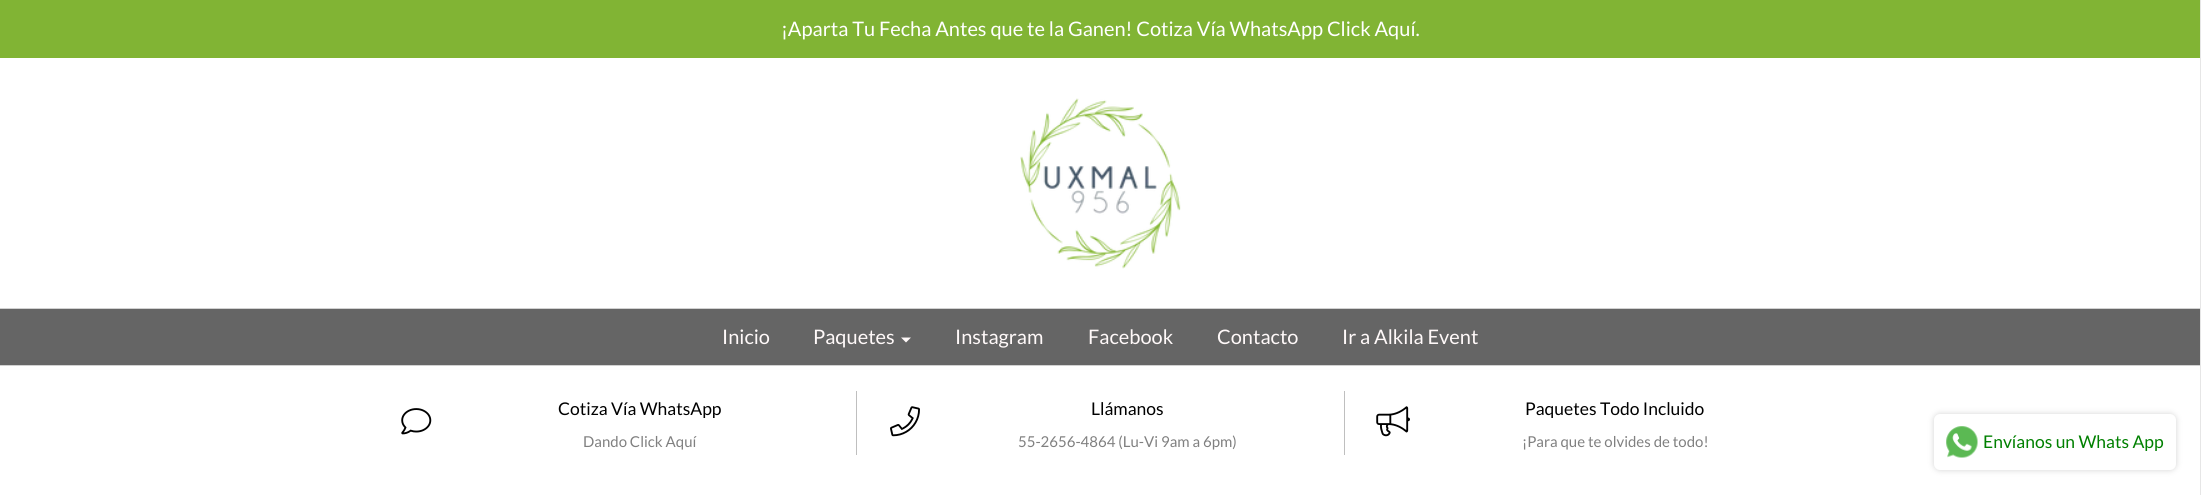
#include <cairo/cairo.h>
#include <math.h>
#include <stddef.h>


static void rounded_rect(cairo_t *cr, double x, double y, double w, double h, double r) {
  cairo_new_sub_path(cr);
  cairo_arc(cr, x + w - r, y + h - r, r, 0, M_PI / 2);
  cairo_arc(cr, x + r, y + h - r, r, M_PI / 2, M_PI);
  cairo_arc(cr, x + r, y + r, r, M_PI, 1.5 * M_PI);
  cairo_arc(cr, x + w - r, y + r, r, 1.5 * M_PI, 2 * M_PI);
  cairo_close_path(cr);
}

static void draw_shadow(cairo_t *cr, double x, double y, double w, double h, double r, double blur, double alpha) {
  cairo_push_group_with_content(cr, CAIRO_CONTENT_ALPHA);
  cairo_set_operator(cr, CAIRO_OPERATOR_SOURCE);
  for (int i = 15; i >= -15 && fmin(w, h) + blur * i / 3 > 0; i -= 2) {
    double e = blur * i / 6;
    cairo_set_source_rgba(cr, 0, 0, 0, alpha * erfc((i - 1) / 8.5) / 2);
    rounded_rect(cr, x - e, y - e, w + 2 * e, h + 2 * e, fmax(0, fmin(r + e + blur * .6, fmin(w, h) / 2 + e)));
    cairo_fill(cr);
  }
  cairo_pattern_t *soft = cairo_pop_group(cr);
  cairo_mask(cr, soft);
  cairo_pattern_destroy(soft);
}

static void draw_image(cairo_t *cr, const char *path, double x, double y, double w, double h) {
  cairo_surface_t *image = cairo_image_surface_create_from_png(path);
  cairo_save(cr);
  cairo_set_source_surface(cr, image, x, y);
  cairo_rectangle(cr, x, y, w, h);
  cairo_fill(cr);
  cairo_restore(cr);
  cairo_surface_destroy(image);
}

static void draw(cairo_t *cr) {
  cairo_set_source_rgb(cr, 1, 1, 1);
  cairo_paint(cr);
  cairo_set_source_rgb(cr, 230 / 255.0, 230 / 255.0, 230 / 255.0);
  cairo_rectangle(cr, 2200, 0, 1, 495);
  cairo_fill(cr);
  cairo_set_source_rgb(cr, 129 / 255.0, 180 / 255.0, 52 / 255.0);
  cairo_rectangle(cr, 0, 0, 2200, 58);
  cairo_fill(cr);
  draw_image(cr, "images/1.png", 1020, 98, 161, 171);
  cairo_set_source_rgb(cr, 101 / 255.0, 101 / 255.0, 101 / 255.0);
  cairo_rectangle(cr, 0, 309, 2200, 56);
  cairo_fill(cr);
  cairo_set_source_rgb(cr, 209 / 255.0, 209 / 255.0, 209 / 255.0);
  cairo_rectangle(cr, 0, 308, 2200, 1);
  cairo_fill(cr);
  cairo_rectangle(cr, 0, 365, 2200, 1);
  cairo_fill(cr);
  cairo_set_source_rgb(cr, 1, 249 / 255.0, 249 / 255.0);
  cairo_new_path(cr);
  cairo_move_to(cr, 901, 337.5);
  cairo_line_to(cr, 911, 337.5);
  cairo_line_to(cr, 906, 342.5);
  cairo_close_path(cr);
  cairo_fill(cr);
  draw_image(cr, "images/2.png", 401, 408, 31, 27);
  cairo_set_source_rgb(cr, 191 / 255.0, 191 / 255.0, 191 / 255.0);
  cairo_rectangle(cr, 856, 391, 1, 64);
  cairo_fill(cr);
  draw_image(cr, "images/3.png", 890, 406, 30, 31);
  cairo_rectangle(cr, 1344, 391, 1, 64);
  cairo_fill(cr);
  draw_image(cr, "images/4.png", 1376, 406, 34, 31);
  cairo_set_source_rgb(cr, 211 / 255.0, 211 / 255.0, 211 / 255.0);
  draw_shadow(cr, 1934, 414, 242, 56, 6, 3, 1);
  cairo_set_source_rgb(cr, 1, 1, 1);
  rounded_rect(cr, 1934, 414, 242, 56, 6);
  cairo_fill(cr);
  draw_image(cr, "images/5.png", 1946, 426, 32, 32);
  cairo_select_font_face(cr, "Lato", CAIRO_FONT_SLANT_NORMAL, CAIRO_FONT_WEIGHT_NORMAL);
  cairo_set_font_size(cr, 20);
  cairo_move_to(cr, 781, 36);
  cairo_show_text(cr, "¡Aparta Tu Fecha Antes que te la Ganen! Cotiza Vía WhatsApp Click Aquí.");
  cairo_set_source_rgb(cr, 1, 249 / 255.0, 249 / 255.0);
  cairo_move_to(cr, 722, 344);
  cairo_show_text(cr, "Inicio");
  cairo_move_to(cr, 813, 344);
  cairo_show_text(cr, "Paquetes");
  cairo_move_to(cr, 955, 344);
  cairo_show_text(cr, "Instagram");
  cairo_move_to(cr, 1088, 344);
  cairo_show_text(cr, "Facebook");
  cairo_move_to(cr, 1217, 344);
  cairo_show_text(cr, "Contacto");
  cairo_move_to(cr, 1342, 344);
  cairo_show_text(cr, "Ir a Alkila Event");
  cairo_set_font_size(cr, 17.5);
  cairo_set_source_rgb(cr, 0, 0, 0);
  cairo_move_to(cr, 558, 415);
  cairo_show_text(cr, "Cotiza Vía WhatsApp");
  cairo_set_font_size(cr, 15);
  cairo_set_source_rgb(cr, 128 / 255.0, 128 / 255.0, 128 / 255.0);
  cairo_move_to(cr, 583, 447);
  cairo_show_text(cr, "Dando Click Aquí");
  cairo_set_font_size(cr, 17.5);
  cairo_set_source_rgb(cr, 0, 0, 0);
  cairo_move_to(cr, 1091, 415);
  cairo_show_text(cr, "Llámanos");
  cairo_set_font_size(cr, 15);
  cairo_set_source_rgb(cr, 128 / 255.0, 128 / 255.0, 128 / 255.0);
  cairo_move_to(cr, 1018, 447);
  cairo_show_text(cr, "55-2656-4864 (Lu-Vi 9am a 6pm)");
  cairo_set_font_size(cr, 17.5);
  cairo_set_source_rgb(cr, 0, 0, 0);
  cairo_move_to(cr, 1525, 415);
  cairo_show_text(cr, "Paquetes Todo Incluido");
  cairo_set_font_size(cr, 15);
  cairo_set_source_rgb(cr, 128 / 255.0, 128 / 255.0, 128 / 255.0);
  cairo_move_to(cr, 1522, 447);
  cairo_show_text(cr, "¡Para que te olvides de todo!");
  cairo_set_font_size(cr, 17.5);
  cairo_set_source_rgb(cr, 0, 128 / 255.0, 0);
  cairo_move_to(cr, 1983, 448);
  cairo_show_text(cr, "Envíanos un Whats App");
}

int main(void) {
  cairo_surface_t *surface = cairo_image_surface_create(CAIRO_FORMAT_RGB24, 2201, 495);
  cairo_t *cr = cairo_create(surface);
  cairo_font_options_t *options = cairo_font_options_create();
  cairo_font_options_set_hint_metrics(options, CAIRO_HINT_METRICS_OFF);
  cairo_font_options_set_hint_style(options, CAIRO_HINT_STYLE_NONE);
  cairo_set_font_options(cr, options);
  cairo_set_miter_limit(cr, 4);
  draw(cr);
  cairo_surface_write_to_png(surface, "out.png");
  cairo_font_options_destroy(options);
  cairo_destroy(cr);
  cairo_surface_destroy(surface);
  return 0;
}
